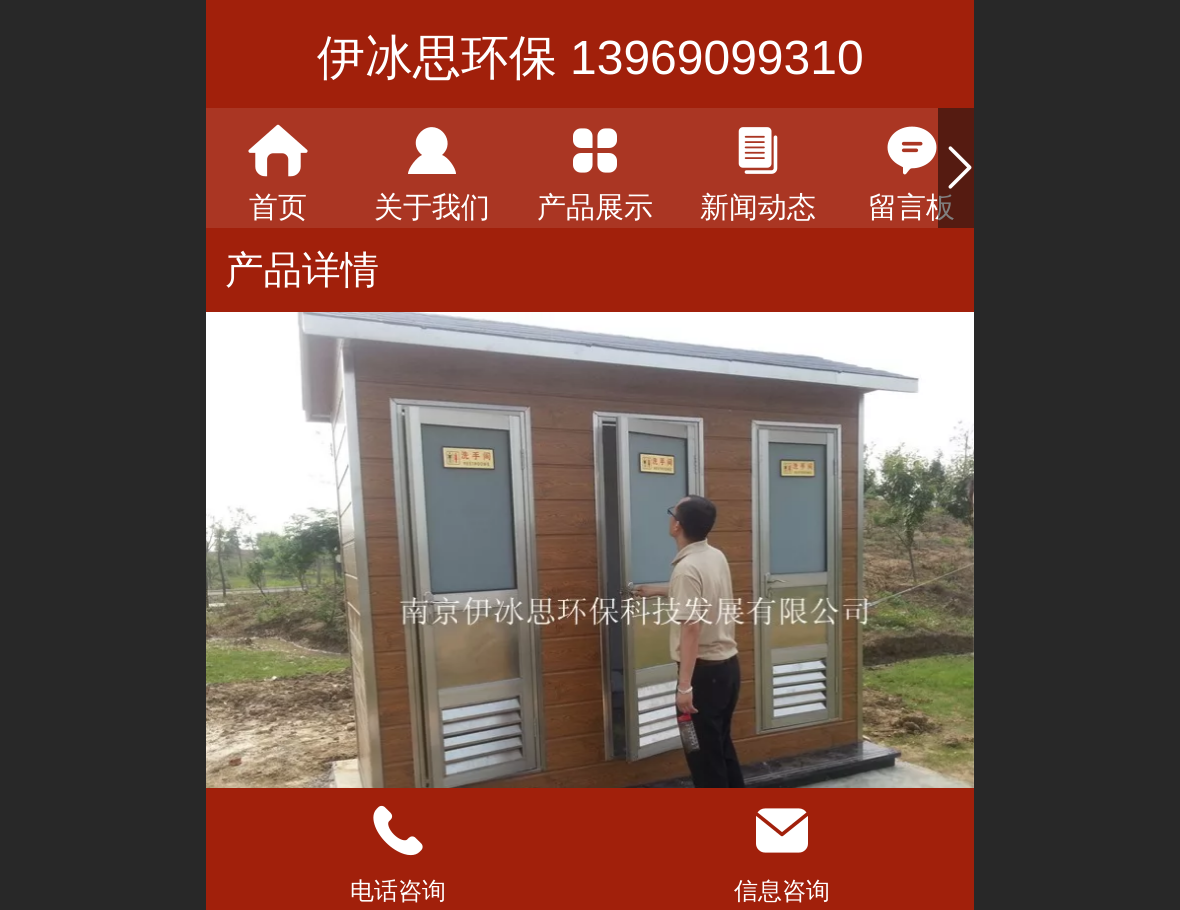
#include <cairo/cairo.h>
#include <math.h>
#include <stddef.h>


static void draw_image(cairo_t *cr, const char *path, double x, double y, double w, double h) {
  cairo_surface_t *image = cairo_image_surface_create_from_png(path);
  cairo_save(cr);
  cairo_set_source_surface(cr, image, x, y);
  cairo_rectangle(cr, x, y, w, h);
  cairo_fill(cr);
  cairo_restore(cr);
  cairo_surface_destroy(image);
}

static void draw(cairo_t *cr) {
  cairo_set_source_rgb(cr, 1, 1, 1);
  cairo_paint(cr);
  cairo_set_source_rgb(cr, 40 / 255.0, 40 / 255.0, 40 / 255.0);
  cairo_rectangle(cr, 0, 0, 206, 910);
  cairo_fill(cr);
  cairo_set_source_rgb(cr, 161 / 255.0, 32 / 255.0, 11 / 255.0);
  cairo_rectangle(cr, 206, 0, 768, 108);
  cairo_fill(cr);
  cairo_set_source_rgb(cr, 170 / 255.0, 54 / 255.0, 35 / 255.0);
  cairo_rectangle(cr, 206, 108, 768, 120);
  cairo_fill(cr);
  draw_image(cr, "images/1.png", 248, 124, 60, 53);
  cairo_set_source_rgb(cr, 1, 1, 1);
  cairo_new_path(cr);
  cairo_move_to(cr, 456, 174);
  cairo_curve_to(cr, 456, 168, 448, 157, 442, 155);
  cairo_curve_to(cr, 457, 142, 439, 119, 423, 130);
  cairo_curve_to(cr, 420, 132, 417, 136, 416, 140);
  cairo_curve_to(cr, 415, 146, 417, 151, 422, 155);
  cairo_curve_to(cr, 417, 157, 408, 168, 408, 174);
  cairo_close_path(cr);
  cairo_fill(cr);
  draw_image(cr, "images/2.png", 573, 128, 44, 45);
  draw_image(cr, "images/3.png", 738, 127, 40, 47);
  draw_image(cr, "images/4.png", 887, 126, 50, 49);
  cairo_set_source_rgb(cr, 161 / 255.0, 32 / 255.0, 11 / 255.0);
  cairo_rectangle(cr, 206, 228, 768, 84);
  cairo_fill(cr);
  draw_image(cr, "images/6.png", 206, 312, 768, 476);
  cairo_rectangle(cr, 206, 788, 768, 122);
  cairo_fill(cr);
  draw_image(cr, "images/7.png", 373, 805, 50, 51);
  draw_image(cr, "images/8.png", 756, 808, 52, 45);
  cairo_set_source_rgb(cr, 40 / 255.0, 40 / 255.0, 40 / 255.0);
  cairo_rectangle(cr, 974, 0, 206, 910);
  cairo_fill(cr);
  cairo_select_font_face(cr, "WenQuanYi Zen Hei Medium", CAIRO_FONT_SLANT_NORMAL, CAIRO_FONT_WEIGHT_NORMAL);
  cairo_set_font_size(cr, 48);
  cairo_set_source_rgb(cr, 1, 1, 1);
  cairo_move_to(cr, 317, 74);
  cairo_show_text(cr, "伊冰思环保");
  cairo_select_font_face(cr, "Liberation Sans", CAIRO_FONT_SLANT_NORMAL, CAIRO_FONT_WEIGHT_NORMAL);
  cairo_move_to(cr, 570, 74);
  cairo_show_text(cr, "13969099310");
  cairo_select_font_face(cr, "WenQuanYi Zen Hei Medium", CAIRO_FONT_SLANT_NORMAL, CAIRO_FONT_WEIGHT_NORMAL);
  cairo_set_font_size(cr, 29);
  cairo_move_to(cr, 249, 217);
  cairo_show_text(cr, "首页");
  cairo_move_to(cr, 374, 217);
  cairo_show_text(cr, "关于我们");
  cairo_move_to(cr, 537, 217);
  cairo_show_text(cr, "产品展示");
  cairo_move_to(cr, 700, 217);
  cairo_show_text(cr, "新闻动态");
  cairo_move_to(cr, 868, 217);
  cairo_show_text(cr, "留言板");
  cairo_set_source_rgba(cr, 0, 0, 0, 0.5);
  cairo_rectangle(cr, 938, 108, 36, 120);
  cairo_fill(cr);
  draw_image(cr, "images/5.png", 948, 146, 24, 43);
  cairo_set_font_size(cr, 38.5);
  cairo_set_source_rgb(cr, 1, 1, 1);
  cairo_move_to(cr, 225, 283);
  cairo_show_text(cr, "产品详情");
  cairo_set_font_size(cr, 24);
  cairo_move_to(cr, 350, 899);
  cairo_show_text(cr, "电话咨询");
  cairo_move_to(cr, 734, 899);
  cairo_show_text(cr, "信息咨询");
}

int main(void) {
  cairo_surface_t *surface = cairo_image_surface_create(CAIRO_FORMAT_RGB24, 1180, 910);
  cairo_t *cr = cairo_create(surface);
  cairo_font_options_t *options = cairo_font_options_create();
  cairo_font_options_set_hint_metrics(options, CAIRO_HINT_METRICS_OFF);
  cairo_font_options_set_hint_style(options, CAIRO_HINT_STYLE_NONE);
  cairo_set_font_options(cr, options);
  cairo_set_miter_limit(cr, 4);
  draw(cr);
  cairo_surface_write_to_png(surface, "out.png");
  cairo_font_options_destroy(options);
  cairo_destroy(cr);
  cairo_surface_destroy(surface);
  return 0;
}
